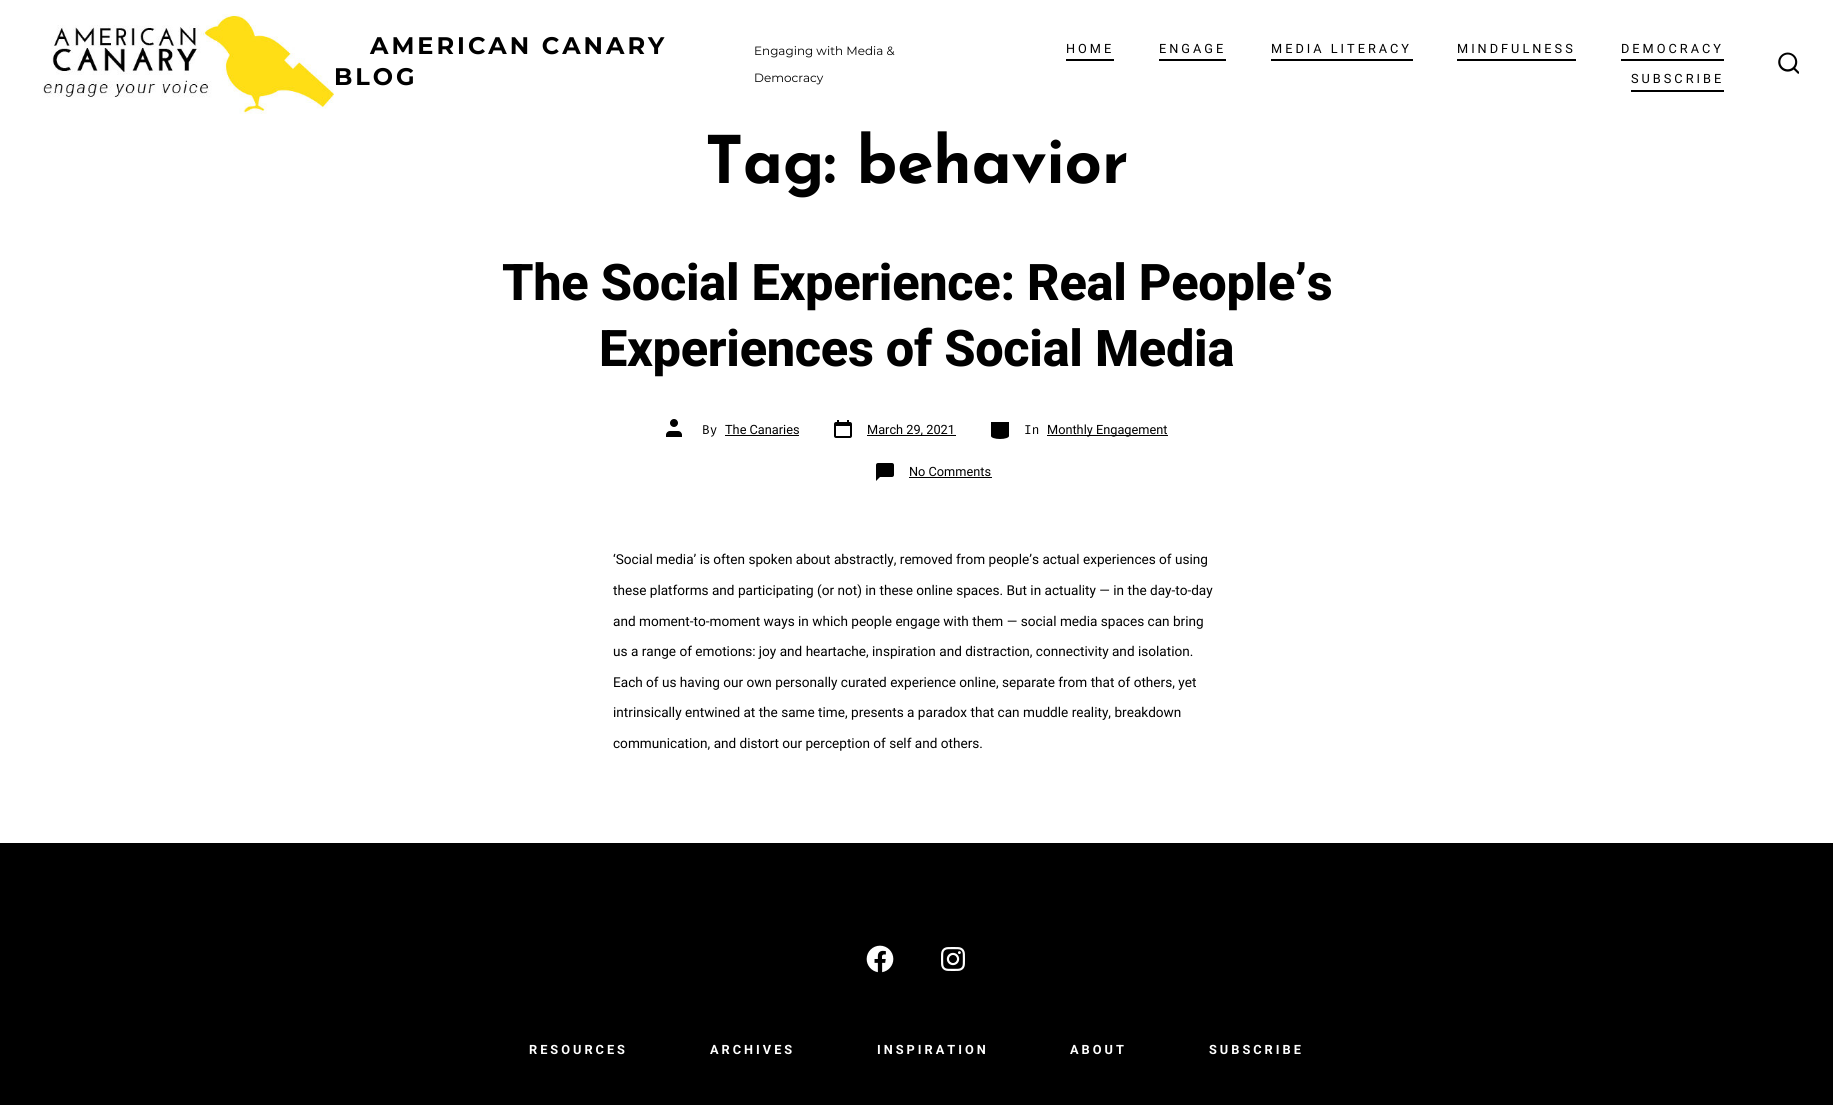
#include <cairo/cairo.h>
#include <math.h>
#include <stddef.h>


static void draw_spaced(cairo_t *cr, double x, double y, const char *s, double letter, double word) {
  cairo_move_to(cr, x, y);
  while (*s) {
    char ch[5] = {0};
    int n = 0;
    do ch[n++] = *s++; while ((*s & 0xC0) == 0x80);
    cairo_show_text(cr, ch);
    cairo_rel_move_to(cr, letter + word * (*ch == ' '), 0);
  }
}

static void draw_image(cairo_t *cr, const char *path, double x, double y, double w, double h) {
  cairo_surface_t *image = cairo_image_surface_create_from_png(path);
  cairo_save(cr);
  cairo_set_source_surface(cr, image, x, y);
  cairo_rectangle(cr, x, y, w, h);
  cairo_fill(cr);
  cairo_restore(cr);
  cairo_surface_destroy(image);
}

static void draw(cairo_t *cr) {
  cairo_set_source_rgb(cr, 1, 1, 1);
  cairo_paint(cr);
  draw_image(cr, "images/1.png", 42, 14, 292, 100);
  cairo_set_source_rgb(cr, 0, 0, 0);
  cairo_rectangle(cr, 1066, 59, 48, 2);
  cairo_fill(cr);
  cairo_rectangle(cr, 1159, 59, 67, 2);
  cairo_fill(cr);
  cairo_rectangle(cr, 1271, 59, 142, 2);
  cairo_fill(cr);
  cairo_rectangle(cr, 1457, 59, 119, 2);
  cairo_fill(cr);
  cairo_rectangle(cr, 1621, 59, 103, 2);
  cairo_fill(cr);
  cairo_rectangle(cr, 1631, 90, 93, 2);
  cairo_fill(cr);
  draw_image(cr, "images/2.png", 1778, 52, 21, 22);
  draw_image(cr, "images/3.png", 666, 419, 16, 18);
  cairo_rectangle(cr, 725, 435, 74, 1);
  cairo_fill(cr);
  draw_image(cr, "images/4.png", 834, 420, 18, 18);
  cairo_rectangle(cr, 867, 435, 89, 1);
  cairo_fill(cr);
  draw_image(cr, "images/5.png", 991, 422, 18, 17);
  cairo_rectangle(cr, 1047, 435, 121, 1);
  cairo_fill(cr);
  draw_image(cr, "images/6.png", 876, 463, 18, 18);
  cairo_rectangle(cr, 909, 477, 83, 1);
  cairo_fill(cr);
  cairo_rectangle(cr, 0, 843, 1833, 262);
  cairo_fill(cr);
  draw_image(cr, "images/7.png", 866, 945, 28, 28);
  draw_image(cr, "images/8.png", 941, 947, 24, 24);
  cairo_select_font_face(cr, "Montserrat", CAIRO_FONT_SLANT_NORMAL, CAIRO_FONT_WEIGHT_BOLD);
  cairo_set_font_size(cr, 24);
  draw_spaced(cr, 370, 54, "AMERICAN CANARY", 3, 0);
  draw_spaced(cr, 334, 85, "BLOG", 3, 0);
  cairo_select_font_face(cr, "Montserrat", CAIRO_FONT_SLANT_NORMAL, CAIRO_FONT_WEIGHT_NORMAL);
  cairo_set_font_size(cr, 12);
  cairo_move_to(cr, 754, 55);
  cairo_show_text(cr, "Engaging with Media &");
  cairo_move_to(cr, 754, 82);
  cairo_show_text(cr, "Democracy");
  cairo_select_font_face(cr, "Roboto", CAIRO_FONT_SLANT_NORMAL, CAIRO_FONT_WEIGHT_NORMAL);
  cairo_set_font_size(cr, 12.75);
  draw_spaced(cr, 1066, 53, "HOME", 3, 0);
  draw_spaced(cr, 1159, 53, "ENGAGE", 3, 0);
  draw_spaced(cr, 1271, 53, "MEDIA LITERACY", 3, 0);
  draw_spaced(cr, 1457, 53, "MINDFULNESS", 3, 0);
  draw_spaced(cr, 1621, 53, "DEMOCRACY", 3, 0);
  draw_spaced(cr, 1631, 83, "SUBSCRIBE", 3, 0);
  cairo_select_font_face(cr, "Josefin Sans", CAIRO_FONT_SLANT_NORMAL, CAIRO_FONT_WEIGHT_BOLD);
  cairo_set_font_size(cr, 65.5);
  draw_spaced(cr, 705, 183, "Tag: behavior", -0.3, 0);
  cairo_select_font_face(cr, "Roboto ExtraBold", CAIRO_FONT_SLANT_NORMAL, CAIRO_FONT_WEIGHT_NORMAL);
  cairo_set_font_size(cr, 50.5);
  draw_spaced(cr, 502, 300, "The Social Experience: Real People’s", -0.3, 0);
  draw_spaced(cr, 599, 366, "Experiences of Social Media", -0.3, 0);
  cairo_select_font_face(cr, "Fira Code", CAIRO_FONT_SLANT_NORMAL, CAIRO_FONT_WEIGHT_NORMAL);
  cairo_set_font_size(cr, 12.75);
  cairo_move_to(cr, 702, 434);
  cairo_show_text(cr, "By");
  cairo_select_font_face(cr, "Roboto", CAIRO_FONT_SLANT_NORMAL, CAIRO_FONT_WEIGHT_NORMAL);
  cairo_move_to(cr, 725, 434);
  cairo_show_text(cr, "The Canaries");
  cairo_move_to(cr, 867, 434);
  cairo_show_text(cr, "March 29, 2021");
  cairo_select_font_face(cr, "Fira Code", CAIRO_FONT_SLANT_NORMAL, CAIRO_FONT_WEIGHT_NORMAL);
  cairo_move_to(cr, 1024, 434);
  cairo_show_text(cr, "In");
  cairo_select_font_face(cr, "Roboto", CAIRO_FONT_SLANT_NORMAL, CAIRO_FONT_WEIGHT_NORMAL);
  cairo_move_to(cr, 1047, 434);
  cairo_show_text(cr, "Monthly Engagement");
  cairo_move_to(cr, 909, 476);
  cairo_show_text(cr, "No Comments");
  cairo_set_font_size(cr, 13.6);
  cairo_move_to(cr, 613, 564);
  cairo_show_text(cr, "‘Social media’ is often spoken about abstractly, removed from people’s actual experiences of using");
  cairo_move_to(cr, 613, 595);
  cairo_show_text(cr, "these platforms and participating (or not) in these online spaces. But in actuality — in the day-to-day");
  cairo_move_to(cr, 613, 626);
  cairo_show_text(cr, "and moment-to-moment ways in which people engage with them — social media spaces can bring");
  cairo_move_to(cr, 613, 656);
  cairo_show_text(cr, "us a range of emotions: joy and heartache, inspiration and distraction, connectivity and isolation.");
  cairo_move_to(cr, 613, 687);
  cairo_show_text(cr, "Each of us having our own personally curated experience online, separate from that of others, yet");
  cairo_move_to(cr, 613, 717);
  cairo_show_text(cr, "intrinsically entwined at the same time, presents a paradox that can muddle reality, breakdown");
  cairo_move_to(cr, 613, 748);
  cairo_show_text(cr, "communication, and distort our perception of self and others.");
  cairo_select_font_face(cr, "Roboto", CAIRO_FONT_SLANT_NORMAL, CAIRO_FONT_WEIGHT_BOLD);
  cairo_set_font_size(cr, 12.75);
  cairo_set_source_rgb(cr, 1, 1, 1);
  draw_spaced(cr, 529, 1054, "RESOURCES", 3, 0);
  draw_spaced(cr, 710, 1054, "ARCHIVES", 3, 0);
  draw_spaced(cr, 877, 1054, "INSPIRATION", 3, 0);
  draw_spaced(cr, 1070, 1054, "ABOUT", 3, 0);
  draw_spaced(cr, 1209, 1054, "SUBSCRIBE", 3, 0);
}

int main(void) {
  cairo_surface_t *surface = cairo_image_surface_create(CAIRO_FORMAT_RGB24, 1833, 1105);
  cairo_t *cr = cairo_create(surface);
  cairo_font_options_t *options = cairo_font_options_create();
  cairo_font_options_set_hint_metrics(options, CAIRO_HINT_METRICS_OFF);
  cairo_font_options_set_hint_style(options, CAIRO_HINT_STYLE_NONE);
  cairo_set_font_options(cr, options);
  cairo_set_miter_limit(cr, 4);
  draw(cr);
  cairo_surface_write_to_png(surface, "out.png");
  cairo_font_options_destroy(options);
  cairo_destroy(cr);
  cairo_surface_destroy(surface);
  return 0;
}
